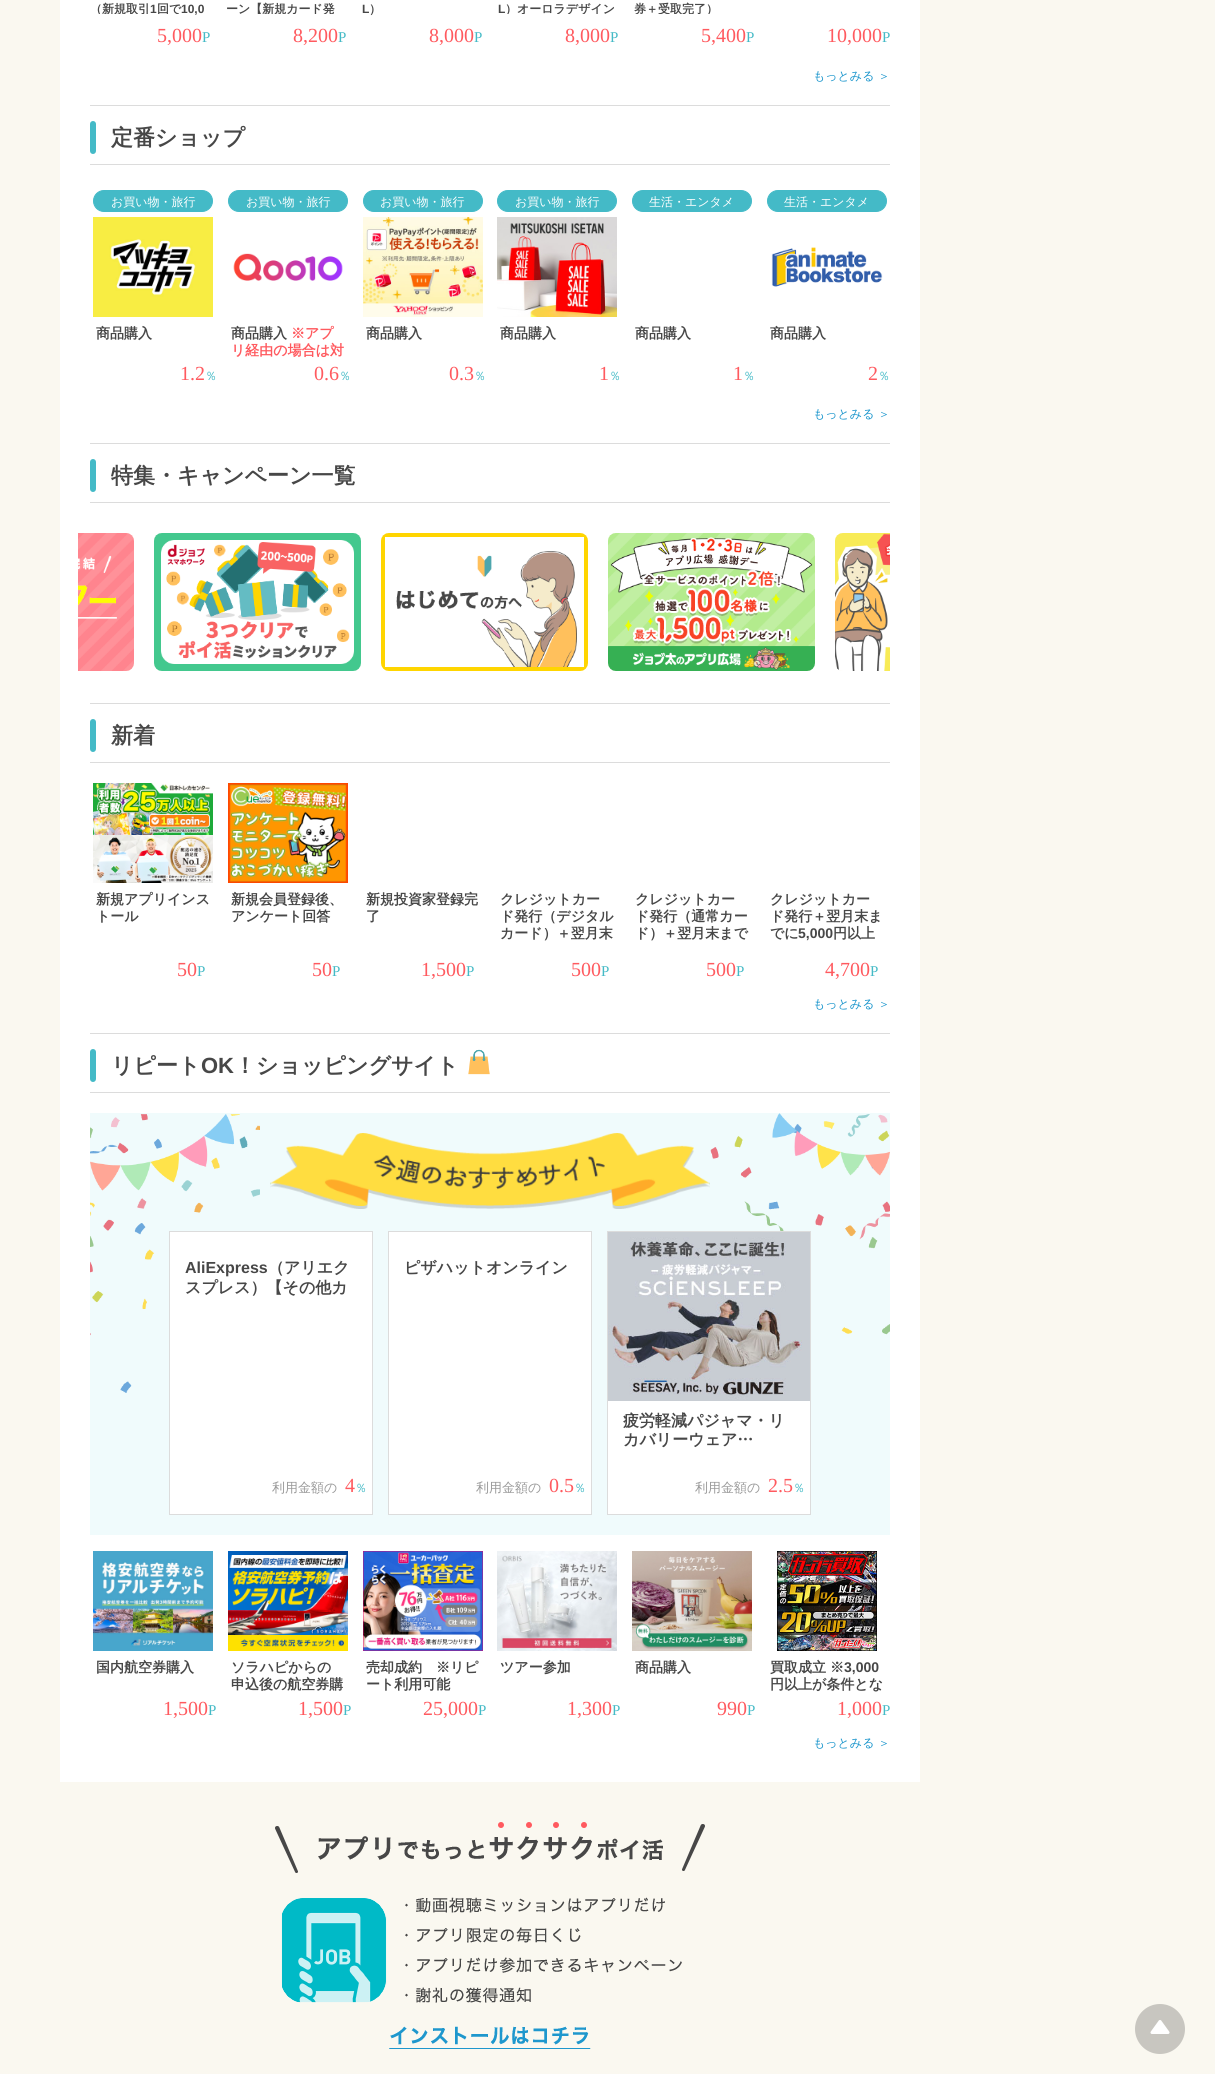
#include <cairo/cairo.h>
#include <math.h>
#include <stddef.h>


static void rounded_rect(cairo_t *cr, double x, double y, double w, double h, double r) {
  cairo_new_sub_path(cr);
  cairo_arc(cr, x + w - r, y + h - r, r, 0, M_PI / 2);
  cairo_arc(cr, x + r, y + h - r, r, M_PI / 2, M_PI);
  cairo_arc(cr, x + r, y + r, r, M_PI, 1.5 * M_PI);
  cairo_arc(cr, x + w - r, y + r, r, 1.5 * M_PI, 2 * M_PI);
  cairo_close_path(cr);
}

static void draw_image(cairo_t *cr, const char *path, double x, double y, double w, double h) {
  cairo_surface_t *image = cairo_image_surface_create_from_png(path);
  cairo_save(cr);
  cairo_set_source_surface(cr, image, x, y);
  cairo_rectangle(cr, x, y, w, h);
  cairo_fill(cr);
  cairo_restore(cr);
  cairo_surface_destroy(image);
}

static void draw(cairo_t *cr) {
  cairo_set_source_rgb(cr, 250 / 255.0, 248 / 255.0, 240 / 255.0);
  cairo_paint(cr);
  cairo_set_source_rgb(cr, 1, 1, 1);
  cairo_rectangle(cr, 60, 0, 860, 1782);
  cairo_fill(cr);
  cairo_set_source_rgb(cr, 220 / 255.0, 220 / 255.0, 220 / 255.0);
  cairo_rectangle(cr, 90, 105, 800, 1);
  cairo_fill(cr);
  cairo_rectangle(cr, 90, 164, 800, 1);
  cairo_fill(cr);
  cairo_set_source_rgb(cr, 68 / 255.0, 186 / 255.0, 199 / 255.0);
  rounded_rect(cr, 90, 121, 6, 33, 3);
  cairo_fill(cr);
  rounded_rect(cr, 93.5, 190.5, 119, 21, 10.5);
  cairo_fill_preserve(cr);
  cairo_set_line_width(cr, 1);
  cairo_stroke(cr);
  draw_image(cr, "images/1.png", 93, 217, 120, 100);
  rounded_rect(cr, 228.5, 190.5, 119, 21, 10.5);
  cairo_fill_preserve(cr);
  cairo_stroke(cr);
  draw_image(cr, "images/2.png", 233, 253, 110, 28);
  rounded_rect(cr, 363.5, 190.5, 119, 21, 10.5);
  cairo_fill_preserve(cr);
  cairo_stroke(cr);
  draw_image(cr, "images/3.png", 363, 217, 120, 100);
  rounded_rect(cr, 497.5, 190.5, 119, 21, 10.5);
  cairo_fill_preserve(cr);
  cairo_stroke(cr);
  draw_image(cr, "images/4.png", 497, 217, 120, 100);
  rounded_rect(cr, 632.5, 190.5, 119, 21, 10.5);
  cairo_fill_preserve(cr);
  cairo_stroke(cr);
  rounded_rect(cr, 767.5, 190.5, 119, 21, 10.5);
  cairo_fill_preserve(cr);
  cairo_stroke(cr);
  draw_image(cr, "images/5.png", 771, 247, 112, 40);
  cairo_set_source_rgb(cr, 220 / 255.0, 220 / 255.0, 220 / 255.0);
  cairo_rectangle(cr, 90, 443, 800, 1);
  cairo_fill(cr);
  cairo_rectangle(cr, 90, 502, 800, 1);
  cairo_fill(cr);
  cairo_set_source_rgb(cr, 68 / 255.0, 186 / 255.0, 199 / 255.0);
  rounded_rect(cr, 90, 459, 6, 33, 3);
  cairo_fill(cr);
  cairo_set_source_rgb(cr, 250 / 255.0, 248 / 255.0, 240 / 255.0);
  cairo_new_path(cr);
  cairo_move_to(cr, 78, 533);
  cairo_line_to(cr, 126, 533);
  cairo_curve_to(cr, 130.5, 533, 134, 536.5, 134, 541);
  cairo_line_to(cr, 134, 663);
  cairo_curve_to(cr, 134, 667.5, 130.5, 671, 126, 671);
  cairo_line_to(cr, 78, 671);
  cairo_close_path(cr);
  cairo_fill(cr);
  draw_image(cr, "images/6.png", 78, 533, 56, 138);
  rounded_rect(cr, 154, 533, 207, 138, 8);
  cairo_fill(cr);
  draw_image(cr, "images/7.png", 154, 533, 207, 138);
  rounded_rect(cr, 381, 533, 207, 138, 8);
  cairo_fill(cr);
  draw_image(cr, "images/8.png", 381, 533, 207, 138);
  rounded_rect(cr, 608, 533, 207, 138, 8);
  cairo_fill(cr);
  draw_image(cr, "images/9.png", 608, 533, 207, 138);
  cairo_new_path(cr);
  cairo_move_to(cr, 843, 533);
  cairo_line_to(cr, 890, 533);
  cairo_line_to(cr, 890, 671);
  cairo_line_to(cr, 843, 671);
  cairo_curve_to(cr, 838.5, 671, 835, 667.5, 835, 663);
  cairo_line_to(cr, 835, 541);
  cairo_curve_to(cr, 835, 536.5, 838.5, 533, 843, 533);
  cairo_close_path(cr);
  cairo_fill(cr);
  draw_image(cr, "images/10.png", 835, 533, 55, 138);
  cairo_set_source_rgb(cr, 220 / 255.0, 220 / 255.0, 220 / 255.0);
  cairo_rectangle(cr, 90, 703, 800, 1);
  cairo_fill(cr);
  cairo_rectangle(cr, 90, 762, 800, 1);
  cairo_fill(cr);
  cairo_set_source_rgb(cr, 68 / 255.0, 186 / 255.0, 199 / 255.0);
  rounded_rect(cr, 90, 719, 6, 33, 3);
  cairo_fill(cr);
  draw_image(cr, "images/11.png", 93, 783, 120, 100);
  draw_image(cr, "images/12.png", 228, 783, 120, 100);
  cairo_set_source_rgb(cr, 220 / 255.0, 220 / 255.0, 220 / 255.0);
  cairo_rectangle(cr, 90, 1033, 800, 1);
  cairo_fill(cr);
  cairo_rectangle(cr, 90, 1092, 800, 1);
  cairo_fill(cr);
  cairo_set_source_rgb(cr, 68 / 255.0, 186 / 255.0, 199 / 255.0);
  rounded_rect(cr, 90, 1049, 6, 33, 3);
  cairo_fill(cr);
  draw_image(cr, "images/13.png", 468, 1049, 22, 26);
  cairo_set_source_rgb(cr, 240 / 255.0, 251 / 255.0, 252 / 255.0);
  cairo_rectangle(cr, 90, 1113, 800, 422);
  cairo_fill(cr);
  draw_image(cr, "images/14.png", 90, 1114, 170, 279);
  draw_image(cr, "images/15.png", 270, 1133, 440, 76);
  draw_image(cr, "images/16.png", 710, 1113, 180, 222);
  cairo_set_source_rgb(cr, 1, 1, 1);
  cairo_rectangle(cr, 169.5, 1231.5, 203, 283);
  cairo_fill_preserve(cr);
  cairo_set_source_rgb(cr, 220 / 255.0, 220 / 255.0, 220 / 255.0);
  cairo_stroke(cr);
  cairo_set_source_rgb(cr, 1, 1, 1);
  cairo_rectangle(cr, 388.5, 1231.5, 203, 283);
  cairo_fill_preserve(cr);
  cairo_set_source_rgb(cr, 220 / 255.0, 220 / 255.0, 220 / 255.0);
  cairo_stroke(cr);
  cairo_set_source_rgb(cr, 1, 1, 1);
  cairo_rectangle(cr, 608, 1401, 202, 113);
  cairo_fill(cr);
  cairo_rectangle(cr, 607.5, 1231.5, 203, 283);
  cairo_set_source_rgb(cr, 220 / 255.0, 220 / 255.0, 220 / 255.0);
  cairo_stroke(cr);
  draw_image(cr, "images/17.png", 608, 1232, 202, 169);
  draw_image(cr, "images/18.png", 93, 1551, 120, 100);
  draw_image(cr, "images/19.png", 228, 1551, 120, 100);
  draw_image(cr, "images/20.png", 363, 1551, 120, 100);
  draw_image(cr, "images/21.png", 497, 1551, 120, 100);
  draw_image(cr, "images/22.png", 632, 1551, 120, 100);
  draw_image(cr, "images/23.png", 777, 1551, 100, 100);
  draw_image(cr, "images/24.png", 275, 1822, 430, 227);
  draw_image(cr, "images/25.png", 1135, 2004, 50, 50);
  cairo_save(cr);
  cairo_rectangle(cr, 90, 0, 120, 14);
  cairo_clip(cr);
  cairo_select_font_face(cr, "WenQuanYi Zen Hei", CAIRO_FONT_SLANT_NORMAL, CAIRO_FONT_WEIGHT_BOLD);
  cairo_set_font_size(cr, 12);
  cairo_set_source_rgb(cr, 71 / 255.0, 71 / 255.0, 71 / 255.0);
  cairo_move_to(cr, 90, 13);
  cairo_show_text(cr, "（新規取引");
  cairo_restore(cr);
  cairo_select_font_face(cr, "Liberation Sans", CAIRO_FONT_SLANT_NORMAL, CAIRO_FONT_WEIGHT_BOLD);
  cairo_set_font_size(cr, 12);
  cairo_set_source_rgb(cr, 71 / 255.0, 71 / 255.0, 71 / 255.0);
  cairo_move_to(cr, 150, 13);
  cairo_show_text(cr, "1");
  cairo_save(cr);
  cairo_rectangle(cr, 90, 0, 120, 14);
  cairo_clip(cr);
  cairo_select_font_face(cr, "WenQuanYi Zen Hei", CAIRO_FONT_SLANT_NORMAL, CAIRO_FONT_WEIGHT_BOLD);
  cairo_move_to(cr, 157, 13);
  cairo_show_text(cr, "回で");
  cairo_restore(cr);
  cairo_move_to(cr, 181, 13);
  cairo_show_text(cr, "10,0");
  cairo_select_font_face(cr, "Liberation Serif", CAIRO_FONT_SLANT_NORMAL, CAIRO_FONT_WEIGHT_NORMAL);
  cairo_set_font_size(cr, 20);
  cairo_set_source_rgb(cr, 1, 90 / 255.0, 95 / 255.0);
  cairo_move_to(cr, 157, 42);
  cairo_show_text(cr, "5,000");
  cairo_set_font_size(cr, 15);
  cairo_set_source_rgb(cr, 68 / 255.0, 186 / 255.0, 198 / 255.0);
  cairo_move_to(cr, 202, 42);
  cairo_show_text(cr, "P");
  cairo_save(cr);
  cairo_rectangle(cr, 226, 0, 120, 14);
  cairo_clip(cr);
  cairo_select_font_face(cr, "WenQuanYi Zen Hei", CAIRO_FONT_SLANT_NORMAL, CAIRO_FONT_WEIGHT_BOLD);
  cairo_set_font_size(cr, 12);
  cairo_set_source_rgb(cr, 71 / 255.0, 71 / 255.0, 71 / 255.0);
  cairo_move_to(cr, 226, 13);
  cairo_show_text(cr, "ーン【新規カード発");
  cairo_restore(cr);
  cairo_set_font_size(cr, 20);
  cairo_set_source_rgb(cr, 1, 90 / 255.0, 95 / 255.0);
  cairo_move_to(cr, 293, 42);
  cairo_show_text(cr, "8,200");
  cairo_set_font_size(cr, 15);
  cairo_set_source_rgb(cr, 68 / 255.0, 186 / 255.0, 198 / 255.0);
  cairo_move_to(cr, 338, 42);
  cairo_show_text(cr, "P");
  cairo_select_font_face(cr, "Liberation Sans", CAIRO_FONT_SLANT_NORMAL, CAIRO_FONT_WEIGHT_BOLD);
  cairo_set_font_size(cr, 12);
  cairo_set_source_rgb(cr, 71 / 255.0, 71 / 255.0, 71 / 255.0);
  cairo_move_to(cr, 362, 13);
  cairo_show_text(cr, "L");
  cairo_select_font_face(cr, "WenQuanYi Zen Hei", CAIRO_FONT_SLANT_NORMAL, CAIRO_FONT_WEIGHT_BOLD);
  cairo_move_to(cr, 369, 13);
  cairo_show_text(cr, "）");
  cairo_select_font_face(cr, "Liberation Serif", CAIRO_FONT_SLANT_NORMAL, CAIRO_FONT_WEIGHT_NORMAL);
  cairo_set_font_size(cr, 20);
  cairo_set_source_rgb(cr, 1, 90 / 255.0, 95 / 255.0);
  cairo_move_to(cr, 429, 42);
  cairo_show_text(cr, "8,000");
  cairo_set_font_size(cr, 15);
  cairo_set_source_rgb(cr, 68 / 255.0, 186 / 255.0, 198 / 255.0);
  cairo_move_to(cr, 474, 42);
  cairo_show_text(cr, "P");
  cairo_select_font_face(cr, "Liberation Sans", CAIRO_FONT_SLANT_NORMAL, CAIRO_FONT_WEIGHT_BOLD);
  cairo_set_font_size(cr, 12);
  cairo_set_source_rgb(cr, 71 / 255.0, 71 / 255.0, 71 / 255.0);
  cairo_move_to(cr, 498, 13);
  cairo_show_text(cr, "L");
  cairo_save(cr);
  cairo_rectangle(cr, 498, 0, 120, 14);
  cairo_clip(cr);
  cairo_select_font_face(cr, "WenQuanYi Zen Hei", CAIRO_FONT_SLANT_NORMAL, CAIRO_FONT_WEIGHT_BOLD);
  cairo_move_to(cr, 505, 13);
  cairo_show_text(cr, "）オーロラデザイン");
  cairo_restore(cr);
  cairo_select_font_face(cr, "Liberation Serif", CAIRO_FONT_SLANT_NORMAL, CAIRO_FONT_WEIGHT_NORMAL);
  cairo_set_font_size(cr, 20);
  cairo_set_source_rgb(cr, 1, 90 / 255.0, 95 / 255.0);
  cairo_move_to(cr, 565, 42);
  cairo_show_text(cr, "8,000");
  cairo_set_font_size(cr, 15);
  cairo_set_source_rgb(cr, 68 / 255.0, 186 / 255.0, 198 / 255.0);
  cairo_move_to(cr, 610, 42);
  cairo_show_text(cr, "P");
  cairo_save(cr);
  cairo_rectangle(cr, 634, 0, 120, 14);
  cairo_clip(cr);
  cairo_select_font_face(cr, "WenQuanYi Zen Hei", CAIRO_FONT_SLANT_NORMAL, CAIRO_FONT_WEIGHT_BOLD);
  cairo_set_font_size(cr, 12);
  cairo_set_source_rgb(cr, 71 / 255.0, 71 / 255.0, 71 / 255.0);
  cairo_move_to(cr, 634, 13);
  cairo_show_text(cr, "券＋受取完了）");
  cairo_restore(cr);
  cairo_set_font_size(cr, 20);
  cairo_set_source_rgb(cr, 1, 90 / 255.0, 95 / 255.0);
  cairo_move_to(cr, 701, 42);
  cairo_show_text(cr, "5,400");
  cairo_set_font_size(cr, 15);
  cairo_set_source_rgb(cr, 68 / 255.0, 186 / 255.0, 198 / 255.0);
  cairo_move_to(cr, 746, 42);
  cairo_show_text(cr, "P");
  cairo_set_font_size(cr, 20);
  cairo_set_source_rgb(cr, 1, 90 / 255.0, 95 / 255.0);
  cairo_move_to(cr, 827, 42);
  cairo_show_text(cr, "10,000");
  cairo_set_font_size(cr, 15);
  cairo_set_source_rgb(cr, 68 / 255.0, 186 / 255.0, 198 / 255.0);
  cairo_move_to(cr, 882, 42);
  cairo_show_text(cr, "P");
  cairo_select_font_face(cr, "WenQuanYi Zen Hei Medium", CAIRO_FONT_SLANT_NORMAL, CAIRO_FONT_WEIGHT_NORMAL);
  cairo_set_font_size(cr, 12);
  cairo_set_source_rgb(cr, 30 / 255.0, 151 / 255.0, 205 / 255.0);
  cairo_move_to(cr, 813, 80);
  cairo_show_text(cr, "もっとみる ＞");
  cairo_select_font_face(cr, "WenQuanYi Zen Hei", CAIRO_FONT_SLANT_NORMAL, CAIRO_FONT_WEIGHT_BOLD);
  cairo_set_font_size(cr, 22);
  cairo_set_source_rgb(cr, 71 / 255.0, 71 / 255.0, 71 / 255.0);
  cairo_move_to(cr, 111, 145);
  cairo_show_text(cr, "定番ショップ");
  cairo_select_font_face(cr, "WenQuanYi Zen Hei Medium", CAIRO_FONT_SLANT_NORMAL, CAIRO_FONT_WEIGHT_NORMAL);
  cairo_set_font_size(cr, 12);
  cairo_set_source_rgb(cr, 1, 1, 1);
  cairo_move_to(cr, 111, 206);
  cairo_show_text(cr, "お買い物・旅行");
  cairo_select_font_face(cr, "WenQuanYi Zen Hei", CAIRO_FONT_SLANT_NORMAL, CAIRO_FONT_WEIGHT_BOLD);
  cairo_set_font_size(cr, 14);
  cairo_set_source_rgb(cr, 71 / 255.0, 71 / 255.0, 71 / 255.0);
  cairo_move_to(cr, 96, 338);
  cairo_show_text(cr, "商品購入");
  cairo_select_font_face(cr, "Liberation Serif", CAIRO_FONT_SLANT_NORMAL, CAIRO_FONT_WEIGHT_NORMAL);
  cairo_set_font_size(cr, 20);
  cairo_set_source_rgb(cr, 1, 90 / 255.0, 95 / 255.0);
  cairo_move_to(cr, 180, 380);
  cairo_show_text(cr, "1.2");
  cairo_select_font_face(cr, "WenQuanYi Zen Hei Medium", CAIRO_FONT_SLANT_NORMAL, CAIRO_FONT_WEIGHT_NORMAL);
  cairo_set_font_size(cr, 12);
  cairo_set_source_rgb(cr, 68 / 255.0, 186 / 255.0, 198 / 255.0);
  cairo_move_to(cr, 205, 380);
  cairo_show_text(cr, "％");
  cairo_set_source_rgb(cr, 1, 1, 1);
  cairo_move_to(cr, 246, 206);
  cairo_show_text(cr, "お買い物・旅行");
  cairo_select_font_face(cr, "WenQuanYi Zen Hei", CAIRO_FONT_SLANT_NORMAL, CAIRO_FONT_WEIGHT_BOLD);
  cairo_set_font_size(cr, 14);
  cairo_set_source_rgb(cr, 71 / 255.0, 71 / 255.0, 71 / 255.0);
  cairo_move_to(cr, 231, 338);
  cairo_show_text(cr, "商品購入");
  cairo_set_source_rgb(cr, 1, 90 / 255.0, 95 / 255.0);
  cairo_move_to(cr, 291, 338);
  cairo_show_text(cr, "※アプ");
  cairo_move_to(cr, 231, 355);
  cairo_show_text(cr, "リ経由の場合は対");
  cairo_select_font_face(cr, "Liberation Serif", CAIRO_FONT_SLANT_NORMAL, CAIRO_FONT_WEIGHT_NORMAL);
  cairo_set_font_size(cr, 20);
  cairo_move_to(cr, 314, 380);
  cairo_show_text(cr, "0.6");
  cairo_select_font_face(cr, "WenQuanYi Zen Hei Medium", CAIRO_FONT_SLANT_NORMAL, CAIRO_FONT_WEIGHT_NORMAL);
  cairo_set_font_size(cr, 12);
  cairo_set_source_rgb(cr, 68 / 255.0, 186 / 255.0, 198 / 255.0);
  cairo_move_to(cr, 339, 380);
  cairo_show_text(cr, "％");
  cairo_set_source_rgb(cr, 1, 1, 1);
  cairo_move_to(cr, 380, 206);
  cairo_show_text(cr, "お買い物・旅行");
  cairo_select_font_face(cr, "WenQuanYi Zen Hei", CAIRO_FONT_SLANT_NORMAL, CAIRO_FONT_WEIGHT_BOLD);
  cairo_set_font_size(cr, 14);
  cairo_set_source_rgb(cr, 71 / 255.0, 71 / 255.0, 71 / 255.0);
  cairo_move_to(cr, 366, 338);
  cairo_show_text(cr, "商品購入");
  cairo_select_font_face(cr, "Liberation Serif", CAIRO_FONT_SLANT_NORMAL, CAIRO_FONT_WEIGHT_NORMAL);
  cairo_set_font_size(cr, 20);
  cairo_set_source_rgb(cr, 1, 90 / 255.0, 95 / 255.0);
  cairo_move_to(cr, 449, 380);
  cairo_show_text(cr, "0.3");
  cairo_select_font_face(cr, "WenQuanYi Zen Hei Medium", CAIRO_FONT_SLANT_NORMAL, CAIRO_FONT_WEIGHT_NORMAL);
  cairo_set_font_size(cr, 12);
  cairo_set_source_rgb(cr, 68 / 255.0, 186 / 255.0, 198 / 255.0);
  cairo_move_to(cr, 474, 380);
  cairo_show_text(cr, "％");
  cairo_set_source_rgb(cr, 1, 1, 1);
  cairo_move_to(cr, 515, 206);
  cairo_show_text(cr, "お買い物・旅行");
  cairo_select_font_face(cr, "WenQuanYi Zen Hei", CAIRO_FONT_SLANT_NORMAL, CAIRO_FONT_WEIGHT_BOLD);
  cairo_set_font_size(cr, 14);
  cairo_set_source_rgb(cr, 71 / 255.0, 71 / 255.0, 71 / 255.0);
  cairo_move_to(cr, 500, 338);
  cairo_show_text(cr, "商品購入");
  cairo_select_font_face(cr, "Liberation Serif", CAIRO_FONT_SLANT_NORMAL, CAIRO_FONT_WEIGHT_NORMAL);
  cairo_set_font_size(cr, 20);
  cairo_set_source_rgb(cr, 1, 90 / 255.0, 95 / 255.0);
  cairo_move_to(cr, 599, 380);
  cairo_show_text(cr, "1");
  cairo_select_font_face(cr, "WenQuanYi Zen Hei Medium", CAIRO_FONT_SLANT_NORMAL, CAIRO_FONT_WEIGHT_NORMAL);
  cairo_set_font_size(cr, 12);
  cairo_set_source_rgb(cr, 68 / 255.0, 186 / 255.0, 198 / 255.0);
  cairo_move_to(cr, 609, 380);
  cairo_show_text(cr, "％");
  cairo_set_source_rgb(cr, 1, 1, 1);
  cairo_move_to(cr, 649, 206);
  cairo_show_text(cr, "生活・エンタメ");
  cairo_select_font_face(cr, "WenQuanYi Zen Hei", CAIRO_FONT_SLANT_NORMAL, CAIRO_FONT_WEIGHT_BOLD);
  cairo_set_font_size(cr, 14);
  cairo_set_source_rgb(cr, 71 / 255.0, 71 / 255.0, 71 / 255.0);
  cairo_move_to(cr, 635, 338);
  cairo_show_text(cr, "商品購入");
  cairo_select_font_face(cr, "Liberation Serif", CAIRO_FONT_SLANT_NORMAL, CAIRO_FONT_WEIGHT_NORMAL);
  cairo_set_font_size(cr, 20);
  cairo_set_source_rgb(cr, 1, 90 / 255.0, 95 / 255.0);
  cairo_move_to(cr, 733, 380);
  cairo_show_text(cr, "1");
  cairo_select_font_face(cr, "WenQuanYi Zen Hei Medium", CAIRO_FONT_SLANT_NORMAL, CAIRO_FONT_WEIGHT_NORMAL);
  cairo_set_font_size(cr, 12);
  cairo_set_source_rgb(cr, 68 / 255.0, 186 / 255.0, 198 / 255.0);
  cairo_move_to(cr, 743, 380);
  cairo_show_text(cr, "％");
  cairo_set_source_rgb(cr, 1, 1, 1);
  cairo_move_to(cr, 784, 206);
  cairo_show_text(cr, "生活・エンタメ");
  cairo_select_font_face(cr, "WenQuanYi Zen Hei", CAIRO_FONT_SLANT_NORMAL, CAIRO_FONT_WEIGHT_BOLD);
  cairo_set_font_size(cr, 14);
  cairo_set_source_rgb(cr, 71 / 255.0, 71 / 255.0, 71 / 255.0);
  cairo_move_to(cr, 770, 338);
  cairo_show_text(cr, "商品購入");
  cairo_select_font_face(cr, "Liberation Serif", CAIRO_FONT_SLANT_NORMAL, CAIRO_FONT_WEIGHT_NORMAL);
  cairo_set_font_size(cr, 20);
  cairo_set_source_rgb(cr, 1, 90 / 255.0, 95 / 255.0);
  cairo_move_to(cr, 868, 380);
  cairo_show_text(cr, "2");
  cairo_select_font_face(cr, "WenQuanYi Zen Hei Medium", CAIRO_FONT_SLANT_NORMAL, CAIRO_FONT_WEIGHT_NORMAL);
  cairo_set_font_size(cr, 12);
  cairo_set_source_rgb(cr, 68 / 255.0, 186 / 255.0, 198 / 255.0);
  cairo_move_to(cr, 878, 380);
  cairo_show_text(cr, "％");
  cairo_set_source_rgb(cr, 30 / 255.0, 151 / 255.0, 205 / 255.0);
  cairo_move_to(cr, 813, 418);
  cairo_show_text(cr, "もっとみる ＞");
  cairo_select_font_face(cr, "WenQuanYi Zen Hei", CAIRO_FONT_SLANT_NORMAL, CAIRO_FONT_WEIGHT_BOLD);
  cairo_set_font_size(cr, 22);
  cairo_set_source_rgb(cr, 71 / 255.0, 71 / 255.0, 71 / 255.0);
  cairo_move_to(cr, 111, 483);
  cairo_show_text(cr, "特集・キャンペーン一覧");
  cairo_move_to(cr, 111, 743);
  cairo_show_text(cr, "新着");
  cairo_set_font_size(cr, 14);
  cairo_move_to(cr, 96, 904);
  cairo_show_text(cr, "新規アプリインス");
  cairo_move_to(cr, 96, 921);
  cairo_show_text(cr, "トール");
  cairo_select_font_face(cr, "Liberation Serif", CAIRO_FONT_SLANT_NORMAL, CAIRO_FONT_WEIGHT_NORMAL);
  cairo_set_font_size(cr, 20);
  cairo_set_source_rgb(cr, 1, 90 / 255.0, 95 / 255.0);
  cairo_move_to(cr, 177, 976);
  cairo_show_text(cr, "50");
  cairo_set_font_size(cr, 15);
  cairo_set_source_rgb(cr, 68 / 255.0, 186 / 255.0, 198 / 255.0);
  cairo_move_to(cr, 197, 976);
  cairo_show_text(cr, "P");
  cairo_select_font_face(cr, "WenQuanYi Zen Hei", CAIRO_FONT_SLANT_NORMAL, CAIRO_FONT_WEIGHT_BOLD);
  cairo_set_font_size(cr, 14);
  cairo_set_source_rgb(cr, 71 / 255.0, 71 / 255.0, 71 / 255.0);
  cairo_move_to(cr, 231, 904);
  cairo_show_text(cr, "新規会員登録後、");
  cairo_move_to(cr, 231, 921);
  cairo_show_text(cr, "アンケート回答");
  cairo_select_font_face(cr, "Liberation Serif", CAIRO_FONT_SLANT_NORMAL, CAIRO_FONT_WEIGHT_NORMAL);
  cairo_set_font_size(cr, 20);
  cairo_set_source_rgb(cr, 1, 90 / 255.0, 95 / 255.0);
  cairo_move_to(cr, 312, 976);
  cairo_show_text(cr, "50");
  cairo_set_font_size(cr, 15);
  cairo_set_source_rgb(cr, 68 / 255.0, 186 / 255.0, 198 / 255.0);
  cairo_move_to(cr, 332, 976);
  cairo_show_text(cr, "P");
  cairo_select_font_face(cr, "WenQuanYi Zen Hei", CAIRO_FONT_SLANT_NORMAL, CAIRO_FONT_WEIGHT_BOLD);
  cairo_set_font_size(cr, 14);
  cairo_set_source_rgb(cr, 71 / 255.0, 71 / 255.0, 71 / 255.0);
  cairo_move_to(cr, 366, 904);
  cairo_show_text(cr, "新規投資家登録完");
  cairo_move_to(cr, 366, 921);
  cairo_show_text(cr, "了");
  cairo_select_font_face(cr, "Liberation Serif", CAIRO_FONT_SLANT_NORMAL, CAIRO_FONT_WEIGHT_NORMAL);
  cairo_set_font_size(cr, 20);
  cairo_set_source_rgb(cr, 1, 90 / 255.0, 95 / 255.0);
  cairo_move_to(cr, 421, 976);
  cairo_show_text(cr, "1,500");
  cairo_set_font_size(cr, 15);
  cairo_set_source_rgb(cr, 68 / 255.0, 186 / 255.0, 198 / 255.0);
  cairo_move_to(cr, 466, 976);
  cairo_show_text(cr, "P");
  cairo_select_font_face(cr, "WenQuanYi Zen Hei", CAIRO_FONT_SLANT_NORMAL, CAIRO_FONT_WEIGHT_BOLD);
  cairo_set_font_size(cr, 14);
  cairo_set_source_rgb(cr, 71 / 255.0, 71 / 255.0, 71 / 255.0);
  cairo_move_to(cr, 500, 904);
  cairo_show_text(cr, "クレジットカー");
  cairo_move_to(cr, 500, 921);
  cairo_show_text(cr, "ド発行（デジタル");
  cairo_move_to(cr, 500, 938);
  cairo_show_text(cr, "カード）＋翌月末");
  cairo_select_font_face(cr, "Liberation Serif", CAIRO_FONT_SLANT_NORMAL, CAIRO_FONT_WEIGHT_NORMAL);
  cairo_set_font_size(cr, 20);
  cairo_set_source_rgb(cr, 1, 90 / 255.0, 95 / 255.0);
  cairo_move_to(cr, 571, 976);
  cairo_show_text(cr, "500");
  cairo_set_font_size(cr, 15);
  cairo_set_source_rgb(cr, 68 / 255.0, 186 / 255.0, 198 / 255.0);
  cairo_move_to(cr, 601, 976);
  cairo_show_text(cr, "P");
  cairo_select_font_face(cr, "WenQuanYi Zen Hei", CAIRO_FONT_SLANT_NORMAL, CAIRO_FONT_WEIGHT_BOLD);
  cairo_set_font_size(cr, 14);
  cairo_set_source_rgb(cr, 71 / 255.0, 71 / 255.0, 71 / 255.0);
  cairo_move_to(cr, 635, 904);
  cairo_show_text(cr, "クレジットカー");
  cairo_move_to(cr, 635, 921);
  cairo_show_text(cr, "ド発行（通常カー");
  cairo_move_to(cr, 635, 938);
  cairo_show_text(cr, "ド）＋翌月末まで");
  cairo_select_font_face(cr, "Liberation Serif", CAIRO_FONT_SLANT_NORMAL, CAIRO_FONT_WEIGHT_NORMAL);
  cairo_set_font_size(cr, 20);
  cairo_set_source_rgb(cr, 1, 90 / 255.0, 95 / 255.0);
  cairo_move_to(cr, 706, 976);
  cairo_show_text(cr, "500");
  cairo_set_font_size(cr, 15);
  cairo_set_source_rgb(cr, 68 / 255.0, 186 / 255.0, 198 / 255.0);
  cairo_move_to(cr, 736, 976);
  cairo_show_text(cr, "P");
  cairo_select_font_face(cr, "WenQuanYi Zen Hei", CAIRO_FONT_SLANT_NORMAL, CAIRO_FONT_WEIGHT_BOLD);
  cairo_set_font_size(cr, 14);
  cairo_set_source_rgb(cr, 71 / 255.0, 71 / 255.0, 71 / 255.0);
  cairo_move_to(cr, 770, 904);
  cairo_show_text(cr, "クレジットカー");
  cairo_move_to(cr, 770, 921);
  cairo_show_text(cr, "ド発行＋翌月末ま");
  cairo_move_to(cr, 770, 938);
  cairo_show_text(cr, "でに");
  cairo_select_font_face(cr, "Liberation Sans", CAIRO_FONT_SLANT_NORMAL, CAIRO_FONT_WEIGHT_BOLD);
  cairo_move_to(cr, 798, 938);
  cairo_show_text(cr, "5,000");
  cairo_select_font_face(cr, "WenQuanYi Zen Hei", CAIRO_FONT_SLANT_NORMAL, CAIRO_FONT_WEIGHT_BOLD);
  cairo_move_to(cr, 833, 938);
  cairo_show_text(cr, "円以上");
  cairo_select_font_face(cr, "Liberation Serif", CAIRO_FONT_SLANT_NORMAL, CAIRO_FONT_WEIGHT_NORMAL);
  cairo_set_font_size(cr, 20);
  cairo_set_source_rgb(cr, 1, 90 / 255.0, 95 / 255.0);
  cairo_move_to(cr, 825, 976);
  cairo_show_text(cr, "4,700");
  cairo_set_font_size(cr, 15);
  cairo_set_source_rgb(cr, 68 / 255.0, 186 / 255.0, 198 / 255.0);
  cairo_move_to(cr, 870, 976);
  cairo_show_text(cr, "P");
  cairo_select_font_face(cr, "WenQuanYi Zen Hei Medium", CAIRO_FONT_SLANT_NORMAL, CAIRO_FONT_WEIGHT_NORMAL);
  cairo_set_font_size(cr, 12);
  cairo_set_source_rgb(cr, 30 / 255.0, 151 / 255.0, 205 / 255.0);
  cairo_move_to(cr, 813, 1008);
  cairo_show_text(cr, "もっとみる ＞");
  cairo_select_font_face(cr, "WenQuanYi Zen Hei", CAIRO_FONT_SLANT_NORMAL, CAIRO_FONT_WEIGHT_BOLD);
  cairo_set_font_size(cr, 22);
  cairo_set_source_rgb(cr, 71 / 255.0, 71 / 255.0, 71 / 255.0);
  cairo_move_to(cr, 111, 1073);
  cairo_show_text(cr, "リピート");
  cairo_select_font_face(cr, "Liberation Sans", CAIRO_FONT_SLANT_NORMAL, CAIRO_FONT_WEIGHT_BOLD);
  cairo_move_to(cr, 201, 1073);
  cairo_show_text(cr, "OK");
  cairo_select_font_face(cr, "WenQuanYi Zen Hei", CAIRO_FONT_SLANT_NORMAL, CAIRO_FONT_WEIGHT_BOLD);
  cairo_move_to(cr, 234, 1073);
  cairo_show_text(cr, "！ショッピングサイト");
  cairo_select_font_face(cr, "Liberation Sans", CAIRO_FONT_SLANT_NORMAL, CAIRO_FONT_WEIGHT_BOLD);
  cairo_set_font_size(cr, 16);
  cairo_move_to(cr, 185, 1273);
  cairo_show_text(cr, "AliExpress");
  cairo_select_font_face(cr, "WenQuanYi Zen Hei", CAIRO_FONT_SLANT_NORMAL, CAIRO_FONT_WEIGHT_BOLD);
  cairo_move_to(cr, 268, 1273);
  cairo_show_text(cr, "（アリエク");
  cairo_move_to(cr, 185, 1293);
  cairo_show_text(cr, "スプレス）【その他カ");
  cairo_select_font_face(cr, "WenQuanYi Zen Hei Medium", CAIRO_FONT_SLANT_NORMAL, CAIRO_FONT_WEIGHT_NORMAL);
  cairo_set_font_size(cr, 13);
  cairo_set_source_rgb(cr, 153 / 255.0, 153 / 255.0, 153 / 255.0);
  cairo_move_to(cr, 272, 1492);
  cairo_show_text(cr, "利用金額の");
  cairo_select_font_face(cr, "Liberation Serif", CAIRO_FONT_SLANT_NORMAL, CAIRO_FONT_WEIGHT_NORMAL);
  cairo_set_font_size(cr, 20);
  cairo_set_source_rgb(cr, 1, 90 / 255.0, 95 / 255.0);
  cairo_move_to(cr, 345, 1492);
  cairo_show_text(cr, "4");
  cairo_select_font_face(cr, "WenQuanYi Zen Hei Medium", CAIRO_FONT_SLANT_NORMAL, CAIRO_FONT_WEIGHT_NORMAL);
  cairo_set_font_size(cr, 12);
  cairo_set_source_rgb(cr, 68 / 255.0, 186 / 255.0, 198 / 255.0);
  cairo_move_to(cr, 355, 1492);
  cairo_show_text(cr, "％");
  cairo_select_font_face(cr, "WenQuanYi Zen Hei", CAIRO_FONT_SLANT_NORMAL, CAIRO_FONT_WEIGHT_BOLD);
  cairo_set_font_size(cr, 16);
  cairo_set_source_rgb(cr, 71 / 255.0, 71 / 255.0, 71 / 255.0);
  cairo_move_to(cr, 404, 1273);
  cairo_show_text(cr, "ピザハットオンライン");
  cairo_select_font_face(cr, "WenQuanYi Zen Hei Medium", CAIRO_FONT_SLANT_NORMAL, CAIRO_FONT_WEIGHT_NORMAL);
  cairo_set_font_size(cr, 13);
  cairo_set_source_rgb(cr, 153 / 255.0, 153 / 255.0, 153 / 255.0);
  cairo_move_to(cr, 476, 1492);
  cairo_show_text(cr, "利用金額の");
  cairo_select_font_face(cr, "Liberation Serif", CAIRO_FONT_SLANT_NORMAL, CAIRO_FONT_WEIGHT_NORMAL);
  cairo_set_font_size(cr, 20);
  cairo_set_source_rgb(cr, 1, 90 / 255.0, 95 / 255.0);
  cairo_move_to(cr, 549, 1492);
  cairo_show_text(cr, "0.5");
  cairo_select_font_face(cr, "WenQuanYi Zen Hei Medium", CAIRO_FONT_SLANT_NORMAL, CAIRO_FONT_WEIGHT_NORMAL);
  cairo_set_font_size(cr, 12);
  cairo_set_source_rgb(cr, 68 / 255.0, 186 / 255.0, 198 / 255.0);
  cairo_move_to(cr, 574, 1492);
  cairo_show_text(cr, "％");
  cairo_select_font_face(cr, "WenQuanYi Zen Hei", CAIRO_FONT_SLANT_NORMAL, CAIRO_FONT_WEIGHT_BOLD);
  cairo_set_font_size(cr, 16);
  cairo_set_source_rgb(cr, 71 / 255.0, 71 / 255.0, 71 / 255.0);
  cairo_move_to(cr, 623, 1426);
  cairo_show_text(cr, "疲労軽減パジャマ・リ");
  cairo_move_to(cr, 623, 1445);
  cairo_show_text(cr, "カバリーウェア…");
  cairo_select_font_face(cr, "WenQuanYi Zen Hei Medium", CAIRO_FONT_SLANT_NORMAL, CAIRO_FONT_WEIGHT_NORMAL);
  cairo_set_font_size(cr, 13);
  cairo_set_source_rgb(cr, 153 / 255.0, 153 / 255.0, 153 / 255.0);
  cairo_move_to(cr, 695, 1492);
  cairo_show_text(cr, "利用金額の");
  cairo_select_font_face(cr, "Liberation Serif", CAIRO_FONT_SLANT_NORMAL, CAIRO_FONT_WEIGHT_NORMAL);
  cairo_set_font_size(cr, 20);
  cairo_set_source_rgb(cr, 1, 90 / 255.0, 95 / 255.0);
  cairo_move_to(cr, 768, 1492);
  cairo_show_text(cr, "2.5");
  cairo_select_font_face(cr, "WenQuanYi Zen Hei Medium", CAIRO_FONT_SLANT_NORMAL, CAIRO_FONT_WEIGHT_NORMAL);
  cairo_set_font_size(cr, 12);
  cairo_set_source_rgb(cr, 68 / 255.0, 186 / 255.0, 198 / 255.0);
  cairo_move_to(cr, 793, 1492);
  cairo_show_text(cr, "％");
  cairo_select_font_face(cr, "WenQuanYi Zen Hei", CAIRO_FONT_SLANT_NORMAL, CAIRO_FONT_WEIGHT_BOLD);
  cairo_set_font_size(cr, 14);
  cairo_set_source_rgb(cr, 71 / 255.0, 71 / 255.0, 71 / 255.0);
  cairo_move_to(cr, 96, 1672);
  cairo_show_text(cr, "国内航空券購入");
  cairo_select_font_face(cr, "Liberation Serif", CAIRO_FONT_SLANT_NORMAL, CAIRO_FONT_WEIGHT_NORMAL);
  cairo_set_font_size(cr, 20);
  cairo_set_source_rgb(cr, 1, 90 / 255.0, 95 / 255.0);
  cairo_move_to(cr, 163, 1715);
  cairo_show_text(cr, "1,500");
  cairo_set_font_size(cr, 15);
  cairo_set_source_rgb(cr, 68 / 255.0, 186 / 255.0, 198 / 255.0);
  cairo_move_to(cr, 208, 1715);
  cairo_show_text(cr, "P");
  cairo_select_font_face(cr, "WenQuanYi Zen Hei", CAIRO_FONT_SLANT_NORMAL, CAIRO_FONT_WEIGHT_BOLD);
  cairo_set_font_size(cr, 14);
  cairo_set_source_rgb(cr, 71 / 255.0, 71 / 255.0, 71 / 255.0);
  cairo_move_to(cr, 231, 1672);
  cairo_show_text(cr, "ソラハピからの");
  cairo_move_to(cr, 231, 1689);
  cairo_show_text(cr, "申込後の航空券購");
  cairo_select_font_face(cr, "Liberation Serif", CAIRO_FONT_SLANT_NORMAL, CAIRO_FONT_WEIGHT_NORMAL);
  cairo_set_font_size(cr, 20);
  cairo_set_source_rgb(cr, 1, 90 / 255.0, 95 / 255.0);
  cairo_move_to(cr, 298, 1715);
  cairo_show_text(cr, "1,500");
  cairo_set_font_size(cr, 15);
  cairo_set_source_rgb(cr, 68 / 255.0, 186 / 255.0, 198 / 255.0);
  cairo_move_to(cr, 343, 1715);
  cairo_show_text(cr, "P");
  cairo_select_font_face(cr, "WenQuanYi Zen Hei", CAIRO_FONT_SLANT_NORMAL, CAIRO_FONT_WEIGHT_BOLD);
  cairo_set_font_size(cr, 14);
  cairo_set_source_rgb(cr, 71 / 255.0, 71 / 255.0, 71 / 255.0);
  cairo_move_to(cr, 366, 1672);
  cairo_show_text(cr, "売却成約　※リピ");
  cairo_move_to(cr, 366, 1689);
  cairo_show_text(cr, "ート利用可能");
  cairo_select_font_face(cr, "Liberation Serif", CAIRO_FONT_SLANT_NORMAL, CAIRO_FONT_WEIGHT_NORMAL);
  cairo_set_font_size(cr, 20);
  cairo_set_source_rgb(cr, 1, 90 / 255.0, 95 / 255.0);
  cairo_move_to(cr, 423, 1715);
  cairo_show_text(cr, "25,000");
  cairo_set_font_size(cr, 15);
  cairo_set_source_rgb(cr, 68 / 255.0, 186 / 255.0, 198 / 255.0);
  cairo_move_to(cr, 478, 1715);
  cairo_show_text(cr, "P");
  cairo_select_font_face(cr, "WenQuanYi Zen Hei", CAIRO_FONT_SLANT_NORMAL, CAIRO_FONT_WEIGHT_BOLD);
  cairo_set_font_size(cr, 14);
  cairo_set_source_rgb(cr, 71 / 255.0, 71 / 255.0, 71 / 255.0);
  cairo_move_to(cr, 500, 1672);
  cairo_show_text(cr, "ツアー参加");
  cairo_select_font_face(cr, "Liberation Serif", CAIRO_FONT_SLANT_NORMAL, CAIRO_FONT_WEIGHT_NORMAL);
  cairo_set_font_size(cr, 20);
  cairo_set_source_rgb(cr, 1, 90 / 255.0, 95 / 255.0);
  cairo_move_to(cr, 567, 1715);
  cairo_show_text(cr, "1,300");
  cairo_set_font_size(cr, 15);
  cairo_set_source_rgb(cr, 68 / 255.0, 186 / 255.0, 198 / 255.0);
  cairo_move_to(cr, 612, 1715);
  cairo_show_text(cr, "P");
  cairo_select_font_face(cr, "WenQuanYi Zen Hei", CAIRO_FONT_SLANT_NORMAL, CAIRO_FONT_WEIGHT_BOLD);
  cairo_set_font_size(cr, 14);
  cairo_set_source_rgb(cr, 71 / 255.0, 71 / 255.0, 71 / 255.0);
  cairo_move_to(cr, 635, 1672);
  cairo_show_text(cr, "商品購入");
  cairo_select_font_face(cr, "Liberation Serif", CAIRO_FONT_SLANT_NORMAL, CAIRO_FONT_WEIGHT_NORMAL);
  cairo_set_font_size(cr, 20);
  cairo_set_source_rgb(cr, 1, 90 / 255.0, 95 / 255.0);
  cairo_move_to(cr, 717, 1715);
  cairo_show_text(cr, "990");
  cairo_set_font_size(cr, 15);
  cairo_set_source_rgb(cr, 68 / 255.0, 186 / 255.0, 198 / 255.0);
  cairo_move_to(cr, 747, 1715);
  cairo_show_text(cr, "P");
  cairo_select_font_face(cr, "WenQuanYi Zen Hei", CAIRO_FONT_SLANT_NORMAL, CAIRO_FONT_WEIGHT_BOLD);
  cairo_set_font_size(cr, 14);
  cairo_set_source_rgb(cr, 71 / 255.0, 71 / 255.0, 71 / 255.0);
  cairo_move_to(cr, 770, 1672);
  cairo_show_text(cr, "買取成立");
  cairo_move_to(cr, 830, 1672);
  cairo_show_text(cr, "※");
  cairo_select_font_face(cr, "Liberation Sans", CAIRO_FONT_SLANT_NORMAL, CAIRO_FONT_WEIGHT_BOLD);
  cairo_move_to(cr, 844, 1672);
  cairo_show_text(cr, "3,000");
  cairo_select_font_face(cr, "WenQuanYi Zen Hei", CAIRO_FONT_SLANT_NORMAL, CAIRO_FONT_WEIGHT_BOLD);
  cairo_move_to(cr, 770, 1689);
  cairo_show_text(cr, "円以上が条件とな");
  cairo_select_font_face(cr, "Liberation Serif", CAIRO_FONT_SLANT_NORMAL, CAIRO_FONT_WEIGHT_NORMAL);
  cairo_set_font_size(cr, 20);
  cairo_set_source_rgb(cr, 1, 90 / 255.0, 95 / 255.0);
  cairo_move_to(cr, 837, 1715);
  cairo_show_text(cr, "1,000");
  cairo_set_font_size(cr, 15);
  cairo_set_source_rgb(cr, 68 / 255.0, 186 / 255.0, 198 / 255.0);
  cairo_move_to(cr, 882, 1715);
  cairo_show_text(cr, "P");
  cairo_select_font_face(cr, "WenQuanYi Zen Hei Medium", CAIRO_FONT_SLANT_NORMAL, CAIRO_FONT_WEIGHT_NORMAL);
  cairo_set_font_size(cr, 12);
  cairo_set_source_rgb(cr, 30 / 255.0, 151 / 255.0, 205 / 255.0);
  cairo_move_to(cr, 813, 1747);
  cairo_show_text(cr, "もっとみる ＞");
}

int main(void) {
  cairo_surface_t *surface = cairo_image_surface_create(CAIRO_FORMAT_RGB24, 1215, 2074);
  cairo_t *cr = cairo_create(surface);
  cairo_font_options_t *options = cairo_font_options_create();
  cairo_font_options_set_hint_metrics(options, CAIRO_HINT_METRICS_OFF);
  cairo_font_options_set_hint_style(options, CAIRO_HINT_STYLE_NONE);
  cairo_set_font_options(cr, options);
  cairo_set_miter_limit(cr, 4);
  draw(cr);
  cairo_surface_write_to_png(surface, "out.png");
  cairo_font_options_destroy(options);
  cairo_destroy(cr);
  cairo_surface_destroy(surface);
  return 0;
}
